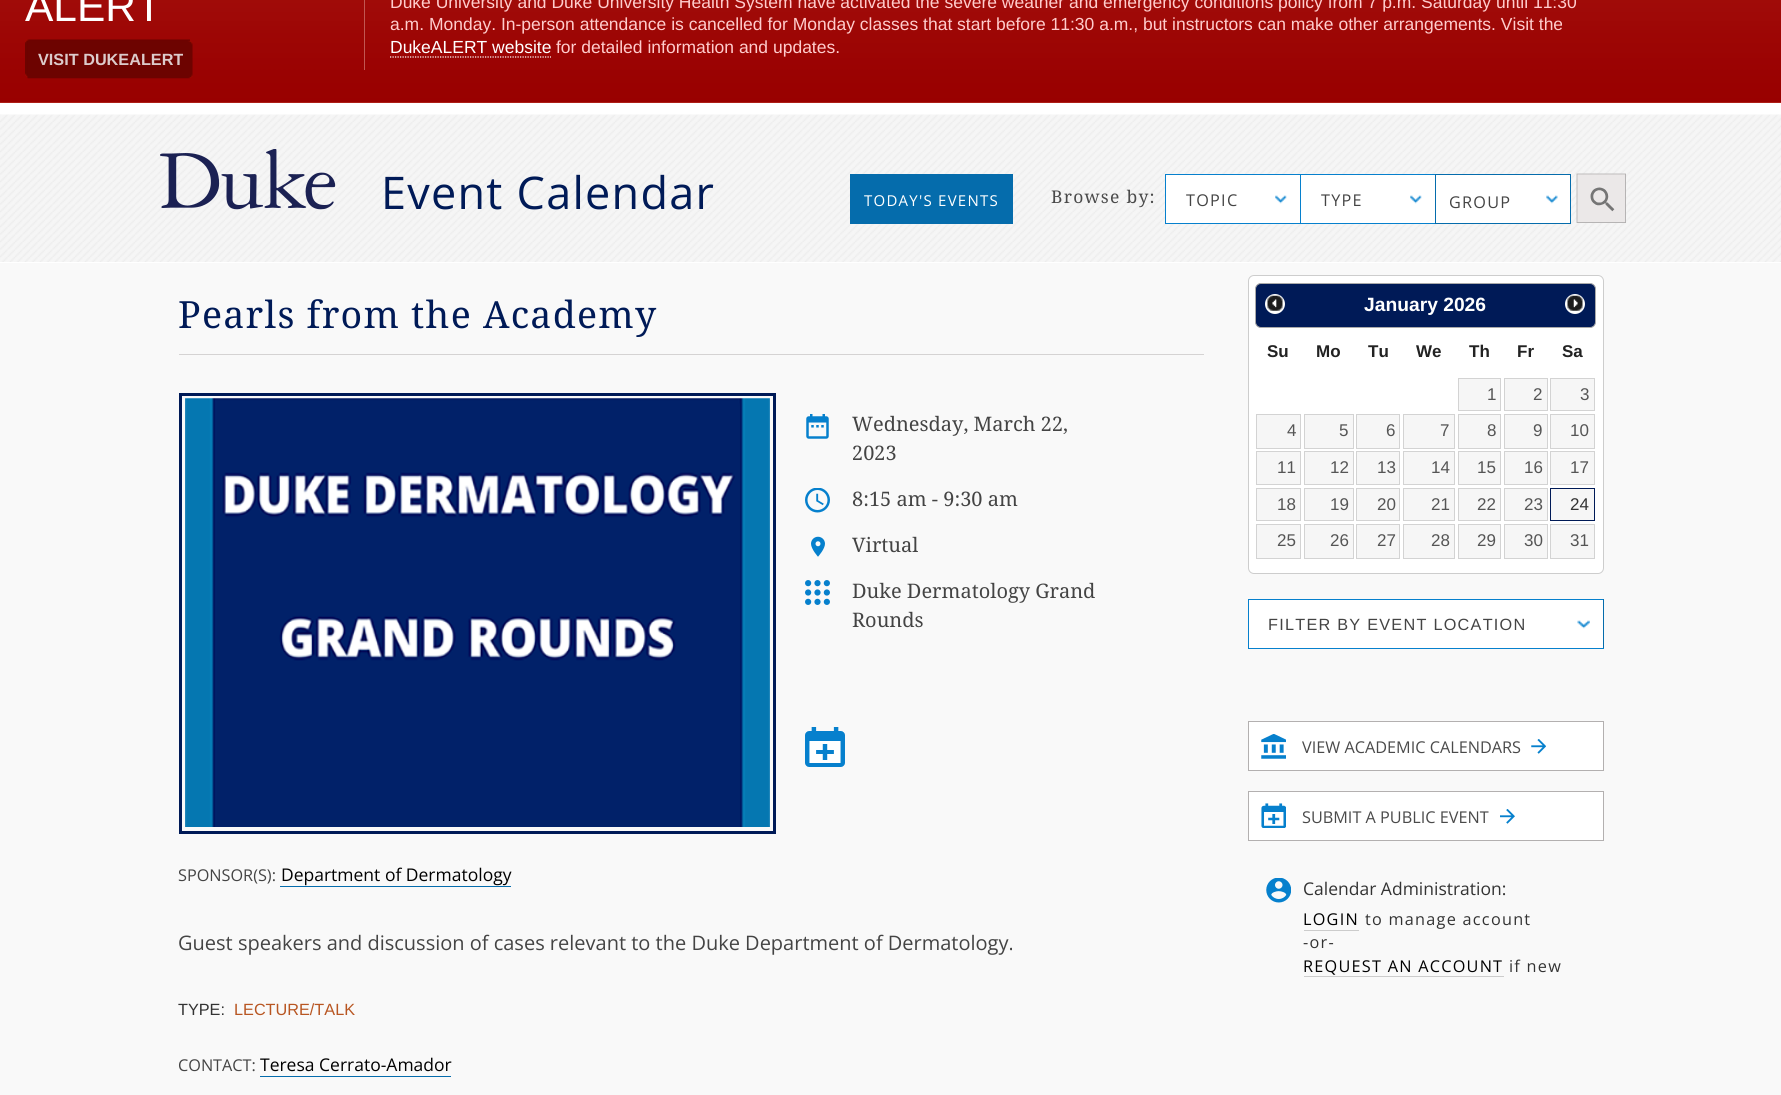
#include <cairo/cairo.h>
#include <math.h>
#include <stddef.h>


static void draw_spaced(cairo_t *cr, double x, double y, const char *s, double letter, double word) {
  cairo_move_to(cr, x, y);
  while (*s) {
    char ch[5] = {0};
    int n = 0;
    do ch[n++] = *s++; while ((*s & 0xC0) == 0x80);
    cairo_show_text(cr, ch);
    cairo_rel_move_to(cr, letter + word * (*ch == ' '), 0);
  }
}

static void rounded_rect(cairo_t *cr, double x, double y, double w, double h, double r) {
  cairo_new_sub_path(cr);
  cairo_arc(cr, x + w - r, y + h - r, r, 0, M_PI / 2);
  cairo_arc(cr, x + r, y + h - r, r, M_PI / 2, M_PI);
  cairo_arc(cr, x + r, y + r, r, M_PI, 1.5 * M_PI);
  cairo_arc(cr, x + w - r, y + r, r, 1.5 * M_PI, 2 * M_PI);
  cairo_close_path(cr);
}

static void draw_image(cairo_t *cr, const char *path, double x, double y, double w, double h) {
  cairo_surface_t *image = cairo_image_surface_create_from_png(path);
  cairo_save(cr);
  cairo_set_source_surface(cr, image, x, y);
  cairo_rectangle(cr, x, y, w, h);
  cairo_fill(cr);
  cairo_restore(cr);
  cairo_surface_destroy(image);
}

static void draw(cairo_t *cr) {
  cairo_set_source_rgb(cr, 1, 1, 1);
  cairo_paint(cr);
  cairo_set_source_rgb(cr, 173 / 255.0, 30 / 255.0, 23 / 255.0);
  cairo_rectangle(cr, 0, 102, 1781, 1);
  cairo_fill(cr);
  draw_image(cr, "images/1.png", 0, 0, 1781, 102);
  draw_image(cr, "images/2.png", 25, 39, 165, 38);
  draw_image(cr, "images/3.png", 27, 40, 166, 39);
  cairo_set_source_rgb(cr, 193 / 255.0, 87 / 255.0, 82 / 255.0);
  cairo_rectangle(cr, 364, 0, 1, 70);
  cairo_fill(cr);
  cairo_new_path(cr);
  cairo_move_to(cr, 390, 57);
  cairo_line_to(cr, 551, 57);
  cairo_set_source_rgb(cr, 1, 1, 1);
  cairo_set_line_width(cr, 1.2);
  cairo_set_dash(cr, (double[]){1.25, 1.25}, 2, 0);
  cairo_stroke(cr);
  draw_image(cr, "images/4.png", 0, 114, 1781, 148);
  draw_image(cr, "images/5.png", 160, 149, 176, 61);
  cairo_set_source_rgb(cr, 5 / 255.0, 108 / 255.0, 172 / 255.0);
  cairo_rectangle(cr, 850, 174, 163, 50);
  cairo_fill(cr);
  cairo_set_source_rgb(cr, 1, 1, 1);
  cairo_rectangle(cr, 1166, 175, 134, 48);
  cairo_fill(cr);
  cairo_set_source_rgb(cr, 6 / 255.0, 128 / 255.0, 205 / 255.0);
  cairo_rectangle(cr, 1165, 174, 270, 1);
  cairo_fill(cr);
  cairo_rectangle(cr, 1165, 223, 270, 1);
  cairo_fill(cr);
  cairo_rectangle(cr, 1165, 174, 1, 50);
  cairo_fill(cr);
  draw_image(cr, "images/6.png", 1275, 195, 12, 9);
  cairo_set_source_rgb(cr, 1, 1, 1);
  cairo_rectangle(cr, 1301, 175, 134, 48);
  cairo_fill(cr);
  cairo_set_source_rgb(cr, 6 / 255.0, 128 / 255.0, 205 / 255.0);
  cairo_rectangle(cr, 1300, 174, 1, 50);
  cairo_fill(cr);
  draw_image(cr, "images/6.png", 1410, 195, 12, 9);
  cairo_set_source_rgb(cr, 1, 1, 1);
  cairo_rectangle(cr, 1435.5, 174.5, 135, 49);
  cairo_fill_preserve(cr);
  cairo_set_source_rgb(cr, 5 / 255.0, 108 / 255.0, 172 / 255.0);
  cairo_set_line_width(cr, 1);
  cairo_set_dash(cr, NULL, 0, 0);
  cairo_stroke(cr);
  draw_image(cr, "images/7.png", 1546, 195, 12, 9);
  draw_image(cr, "images/8.png", 1576, 173, 50, 50);
  cairo_set_source_rgb(cr, 249 / 255.0, 249 / 255.0, 249 / 255.0);
  cairo_rectangle(cr, 0, 263, 1781, 832);
  cairo_fill(cr);
  cairo_set_source_rgb(cr, 213 / 255.0, 211 / 255.0, 211 / 255.0);
  cairo_rectangle(cr, 179, 354, 1025, 1);
  cairo_fill(cr);
  cairo_rectangle(cr, 180.5, 394.5, 594, 438);
  cairo_set_source_rgb(cr, 0, 26 / 255.0, 87 / 255.0);
  cairo_set_line_width(cr, 3);
  cairo_stroke(cr);
  draw_image(cr, "images/9.png", 185, 398, 585, 429);
  draw_image(cr, "images/10.png", 806, 414, 23, 25);
  draw_image(cr, "images/11.png", 805, 488, 25, 25);
  draw_image(cr, "images/12.png", 811, 536, 14, 21);
  draw_image(cr, "images/13.png", 805, 580, 25, 25);
  draw_image(cr, "images/14.png", 805, 727, 40, 40);
  cairo_set_source_rgb(cr, 5 / 255.0, 108 / 255.0, 172 / 255.0);
  cairo_rectangle(cr, 280, 886, 231, 1);
  cairo_fill(cr);
  cairo_rectangle(cr, 260, 1076, 191, 1);
  cairo_fill(cr);
  cairo_set_source_rgb(cr, 1, 1, 1);
  rounded_rect(cr, 1248.5, 275.5, 355, 298, 5.5);
  cairo_fill_preserve(cr);
  cairo_set_source_rgb(cr, 205 / 255.0, 205 / 255.0, 205 / 255.0);
  cairo_set_line_width(cr, 1);
  cairo_stroke(cr);
  cairo_set_source_rgb(cr, 0, 26 / 255.0, 87 / 255.0);
  rounded_rect(cr, 1255.5, 283.5, 340, 44, 5.5);
  cairo_fill_preserve(cr);
  cairo_set_source_rgb(cr, 170 / 255.0, 170 / 255.0, 170 / 255.0);
  cairo_stroke(cr);
  cairo_set_source_rgb(cr, 1, 1, 1);
  cairo_arc(cr, 1275, 304, 10, 0, 2 * M_PI);
  cairo_fill(cr);
  draw_image(cr, "images/15.png", 1267, 295, 16, 16);
  cairo_arc(cr, 1575, 304, 10, 0, 2 * M_PI);
  cairo_fill(cr);
  draw_image(cr, "images/16.png", 1567, 295, 16, 16);
  cairo_set_source_rgb(cr, 246 / 255.0, 246 / 255.0, 246 / 255.0);
  cairo_rectangle(cr, 1458.5, 378.5, 42, 32);
  cairo_fill_preserve(cr);
  cairo_set_source_rgb(cr, 211 / 255.0, 211 / 255.0, 211 / 255.0);
  cairo_stroke(cr);
  cairo_set_source_rgb(cr, 246 / 255.0, 246 / 255.0, 246 / 255.0);
  cairo_rectangle(cr, 1504.5, 378.5, 43, 32);
  cairo_fill_preserve(cr);
  cairo_set_source_rgb(cr, 211 / 255.0, 211 / 255.0, 211 / 255.0);
  cairo_stroke(cr);
  cairo_set_source_rgb(cr, 246 / 255.0, 246 / 255.0, 246 / 255.0);
  cairo_rectangle(cr, 1550.5, 378.5, 44, 32);
  cairo_fill_preserve(cr);
  cairo_set_source_rgb(cr, 211 / 255.0, 211 / 255.0, 211 / 255.0);
  cairo_stroke(cr);
  cairo_set_source_rgb(cr, 246 / 255.0, 246 / 255.0, 246 / 255.0);
  cairo_rectangle(cr, 1256.5, 414.5, 44, 34);
  cairo_fill_preserve(cr);
  cairo_set_source_rgb(cr, 211 / 255.0, 211 / 255.0, 211 / 255.0);
  cairo_stroke(cr);
  cairo_set_source_rgb(cr, 246 / 255.0, 246 / 255.0, 246 / 255.0);
  cairo_rectangle(cr, 1304.5, 414.5, 49, 34);
  cairo_fill_preserve(cr);
  cairo_set_source_rgb(cr, 211 / 255.0, 211 / 255.0, 211 / 255.0);
  cairo_stroke(cr);
  cairo_set_source_rgb(cr, 246 / 255.0, 246 / 255.0, 246 / 255.0);
  cairo_rectangle(cr, 1356.5, 414.5, 43, 34);
  cairo_fill_preserve(cr);
  cairo_set_source_rgb(cr, 211 / 255.0, 211 / 255.0, 211 / 255.0);
  cairo_stroke(cr);
  cairo_set_source_rgb(cr, 246 / 255.0, 246 / 255.0, 246 / 255.0);
  cairo_rectangle(cr, 1403.5, 414.5, 51, 34);
  cairo_fill_preserve(cr);
  cairo_set_source_rgb(cr, 211 / 255.0, 211 / 255.0, 211 / 255.0);
  cairo_stroke(cr);
  cairo_set_source_rgb(cr, 246 / 255.0, 246 / 255.0, 246 / 255.0);
  cairo_rectangle(cr, 1458.5, 414.5, 42, 34);
  cairo_fill_preserve(cr);
  cairo_set_source_rgb(cr, 211 / 255.0, 211 / 255.0, 211 / 255.0);
  cairo_stroke(cr);
  cairo_set_source_rgb(cr, 246 / 255.0, 246 / 255.0, 246 / 255.0);
  cairo_rectangle(cr, 1504.5, 414.5, 43, 34);
  cairo_fill_preserve(cr);
  cairo_set_source_rgb(cr, 211 / 255.0, 211 / 255.0, 211 / 255.0);
  cairo_stroke(cr);
  cairo_set_source_rgb(cr, 246 / 255.0, 246 / 255.0, 246 / 255.0);
  cairo_rectangle(cr, 1550.5, 414.5, 44, 34);
  cairo_fill_preserve(cr);
  cairo_set_source_rgb(cr, 211 / 255.0, 211 / 255.0, 211 / 255.0);
  cairo_stroke(cr);
  cairo_set_source_rgb(cr, 246 / 255.0, 246 / 255.0, 246 / 255.0);
  cairo_rectangle(cr, 1256.5, 451.5, 44, 33);
  cairo_fill_preserve(cr);
  cairo_set_source_rgb(cr, 211 / 255.0, 211 / 255.0, 211 / 255.0);
  cairo_stroke(cr);
  cairo_set_source_rgb(cr, 246 / 255.0, 246 / 255.0, 246 / 255.0);
  cairo_rectangle(cr, 1304.5, 451.5, 49, 33);
  cairo_fill_preserve(cr);
  cairo_set_source_rgb(cr, 211 / 255.0, 211 / 255.0, 211 / 255.0);
  cairo_stroke(cr);
  cairo_set_source_rgb(cr, 246 / 255.0, 246 / 255.0, 246 / 255.0);
  cairo_rectangle(cr, 1356.5, 451.5, 43, 33);
  cairo_fill_preserve(cr);
  cairo_set_source_rgb(cr, 211 / 255.0, 211 / 255.0, 211 / 255.0);
  cairo_stroke(cr);
  cairo_set_source_rgb(cr, 246 / 255.0, 246 / 255.0, 246 / 255.0);
  cairo_rectangle(cr, 1403.5, 451.5, 51, 33);
  cairo_fill_preserve(cr);
  cairo_set_source_rgb(cr, 211 / 255.0, 211 / 255.0, 211 / 255.0);
  cairo_stroke(cr);
  cairo_set_source_rgb(cr, 246 / 255.0, 246 / 255.0, 246 / 255.0);
  cairo_rectangle(cr, 1458.5, 451.5, 42, 33);
  cairo_fill_preserve(cr);
  cairo_set_source_rgb(cr, 211 / 255.0, 211 / 255.0, 211 / 255.0);
  cairo_stroke(cr);
  cairo_set_source_rgb(cr, 246 / 255.0, 246 / 255.0, 246 / 255.0);
  cairo_rectangle(cr, 1504.5, 451.5, 43, 33);
  cairo_fill_preserve(cr);
  cairo_set_source_rgb(cr, 211 / 255.0, 211 / 255.0, 211 / 255.0);
  cairo_stroke(cr);
  cairo_set_source_rgb(cr, 246 / 255.0, 246 / 255.0, 246 / 255.0);
  cairo_rectangle(cr, 1550.5, 451.5, 44, 33);
  cairo_fill_preserve(cr);
  cairo_set_source_rgb(cr, 211 / 255.0, 211 / 255.0, 211 / 255.0);
  cairo_stroke(cr);
  cairo_set_source_rgb(cr, 246 / 255.0, 246 / 255.0, 246 / 255.0);
  cairo_rectangle(cr, 1256.5, 488.5, 44, 32);
  cairo_fill_preserve(cr);
  cairo_set_source_rgb(cr, 211 / 255.0, 211 / 255.0, 211 / 255.0);
  cairo_stroke(cr);
  cairo_set_source_rgb(cr, 246 / 255.0, 246 / 255.0, 246 / 255.0);
  cairo_rectangle(cr, 1304.5, 488.5, 49, 32);
  cairo_fill_preserve(cr);
  cairo_set_source_rgb(cr, 211 / 255.0, 211 / 255.0, 211 / 255.0);
  cairo_stroke(cr);
  cairo_set_source_rgb(cr, 246 / 255.0, 246 / 255.0, 246 / 255.0);
  cairo_rectangle(cr, 1356.5, 488.5, 43, 32);
  cairo_fill_preserve(cr);
  cairo_set_source_rgb(cr, 211 / 255.0, 211 / 255.0, 211 / 255.0);
  cairo_stroke(cr);
  cairo_set_source_rgb(cr, 246 / 255.0, 246 / 255.0, 246 / 255.0);
  cairo_rectangle(cr, 1403.5, 488.5, 51, 32);
  cairo_fill_preserve(cr);
  cairo_set_source_rgb(cr, 211 / 255.0, 211 / 255.0, 211 / 255.0);
  cairo_stroke(cr);
  cairo_set_source_rgb(cr, 246 / 255.0, 246 / 255.0, 246 / 255.0);
  cairo_rectangle(cr, 1458.5, 488.5, 42, 32);
  cairo_fill_preserve(cr);
  cairo_set_source_rgb(cr, 211 / 255.0, 211 / 255.0, 211 / 255.0);
  cairo_stroke(cr);
  cairo_set_source_rgb(cr, 246 / 255.0, 246 / 255.0, 246 / 255.0);
  cairo_rectangle(cr, 1504.5, 488.5, 43, 32);
  cairo_fill_preserve(cr);
  cairo_set_source_rgb(cr, 211 / 255.0, 211 / 255.0, 211 / 255.0);
  cairo_stroke(cr);
  cairo_set_source_rgb(cr, 246 / 255.0, 246 / 255.0, 246 / 255.0);
  cairo_rectangle(cr, 1550.5, 488.5, 44, 32);
  cairo_fill_preserve(cr);
  cairo_set_source_rgb(cr, 0, 26 / 255.0, 87 / 255.0);
  cairo_stroke(cr);
  cairo_set_source_rgb(cr, 246 / 255.0, 246 / 255.0, 246 / 255.0);
  cairo_rectangle(cr, 1256.5, 524.5, 44, 34);
  cairo_fill_preserve(cr);
  cairo_set_source_rgb(cr, 211 / 255.0, 211 / 255.0, 211 / 255.0);
  cairo_stroke(cr);
  cairo_set_source_rgb(cr, 246 / 255.0, 246 / 255.0, 246 / 255.0);
  cairo_rectangle(cr, 1304.5, 524.5, 49, 34);
  cairo_fill_preserve(cr);
  cairo_set_source_rgb(cr, 211 / 255.0, 211 / 255.0, 211 / 255.0);
  cairo_stroke(cr);
  cairo_set_source_rgb(cr, 246 / 255.0, 246 / 255.0, 246 / 255.0);
  cairo_rectangle(cr, 1356.5, 524.5, 43, 34);
  cairo_fill_preserve(cr);
  cairo_set_source_rgb(cr, 211 / 255.0, 211 / 255.0, 211 / 255.0);
  cairo_stroke(cr);
  cairo_set_source_rgb(cr, 246 / 255.0, 246 / 255.0, 246 / 255.0);
  cairo_rectangle(cr, 1403.5, 524.5, 51, 34);
  cairo_fill_preserve(cr);
  cairo_set_source_rgb(cr, 211 / 255.0, 211 / 255.0, 211 / 255.0);
  cairo_stroke(cr);
  cairo_set_source_rgb(cr, 246 / 255.0, 246 / 255.0, 246 / 255.0);
  cairo_rectangle(cr, 1458.5, 524.5, 42, 34);
  cairo_fill_preserve(cr);
  cairo_set_source_rgb(cr, 211 / 255.0, 211 / 255.0, 211 / 255.0);
  cairo_stroke(cr);
  cairo_set_source_rgb(cr, 246 / 255.0, 246 / 255.0, 246 / 255.0);
  cairo_rectangle(cr, 1504.5, 524.5, 43, 34);
  cairo_fill_preserve(cr);
  cairo_set_source_rgb(cr, 211 / 255.0, 211 / 255.0, 211 / 255.0);
  cairo_stroke(cr);
  cairo_set_source_rgb(cr, 246 / 255.0, 246 / 255.0, 246 / 255.0);
  cairo_rectangle(cr, 1550.5, 524.5, 44, 34);
  cairo_fill_preserve(cr);
  cairo_set_source_rgb(cr, 211 / 255.0, 211 / 255.0, 211 / 255.0);
  cairo_stroke(cr);
  cairo_set_source_rgb(cr, 1, 1, 1);
  cairo_rectangle(cr, 1249, 600, 354, 48);
  cairo_fill(cr);
  cairo_set_source_rgb(cr, 6 / 255.0, 128 / 255.0, 205 / 255.0);
  cairo_rectangle(cr, 1248, 599, 356, 1);
  cairo_fill(cr);
  cairo_set_source_rgb(cr, 5 / 255.0, 108 / 255.0, 172 / 255.0);
  cairo_rectangle(cr, 1603, 599, 1, 50);
  cairo_fill(cr);
  cairo_set_source_rgb(cr, 6 / 255.0, 128 / 255.0, 205 / 255.0);
  cairo_rectangle(cr, 1248, 648, 356, 1);
  cairo_fill(cr);
  cairo_rectangle(cr, 1248, 599, 1, 50);
  cairo_fill(cr);
  draw_image(cr, "images/17.png", 1577, 620, 13, 9);
  cairo_set_source_rgb(cr, 1, 1, 1);
  cairo_rectangle(cr, 1248.5, 721.5, 355, 49);
  cairo_fill_preserve(cr);
  cairo_set_source_rgb(cr, 179 / 255.0, 176 / 255.0, 176 / 255.0);
  cairo_stroke(cr);
  draw_image(cr, "images/18.png", 1261, 734, 25, 25);
  draw_image(cr, "images/19.png", 1531, 739, 15, 15);
  cairo_set_source_rgb(cr, 1, 1, 1);
  cairo_rectangle(cr, 1248.5, 791.5, 355, 49);
  cairo_fill_preserve(cr);
  cairo_set_source_rgb(cr, 179 / 255.0, 176 / 255.0, 176 / 255.0);
  cairo_stroke(cr);
  draw_image(cr, "images/20.png", 1261, 803, 25, 25);
  draw_image(cr, "images/21.png", 1500, 809, 15, 15);
  draw_image(cr, "images/22.png", 1266, 878, 25, 25);
  cairo_set_source_rgb(cr, 204 / 255.0, 204 / 255.0, 204 / 255.0);
  cairo_rectangle(cr, 1304, 930, 55, 1);
  cairo_fill(cr);
  cairo_rectangle(cr, 1304, 976, 200, 1);
  cairo_fill(cr);
  cairo_select_font_face(cr, "Liberation Sans", CAIRO_FONT_SLANT_NORMAL, CAIRO_FONT_WEIGHT_NORMAL);
  cairo_set_font_size(cr, 42.5);
  cairo_set_source_rgb(cr, 1, 1, 1);
  cairo_move_to(cr, 25, 21);
  cairo_show_text(cr, "ALERT");
  cairo_select_font_face(cr, "Liberation Sans", CAIRO_FONT_SLANT_NORMAL, CAIRO_FONT_WEIGHT_BOLD);
  cairo_set_font_size(cr, 16.25);
  cairo_set_source_rgb(cr, 220 / 255.0, 203 / 255.0, 203 / 255.0);
  cairo_move_to(cr, 38, 65);
  cairo_show_text(cr, "VISIT DUKEALERT");
  cairo_select_font_face(cr, "Liberation Sans", CAIRO_FONT_SLANT_NORMAL, CAIRO_FONT_WEIGHT_NORMAL);
  cairo_set_font_size(cr, 17.5);
  cairo_set_source_rgb(cr, 1, 204 / 255.0, 204 / 255.0);
  cairo_move_to(cr, 390, 8);
  cairo_show_text(cr, "Duke University and Duke University Health System have activated the severe weather and emergency conditions policy from 7 p.m. Saturday until 11:30");
  cairo_move_to(cr, 390, 30);
  cairo_show_text(cr, "a.m. Monday. In-person attendance is cancelled for Monday classes that start before 11:30 a.m., but instructors can make other arrangements. Visit the");
  cairo_set_source_rgb(cr, 1, 1, 1);
  cairo_move_to(cr, 390, 53);
  cairo_show_text(cr, "DukeALERT website");
  cairo_set_source_rgb(cr, 1, 204 / 255.0, 204 / 255.0);
  cairo_move_to(cr, 556, 53);
  cairo_show_text(cr, "for detailed information and updates.");
  cairo_select_font_face(cr, "Open Sans", CAIRO_FONT_SLANT_NORMAL, CAIRO_FONT_WEIGHT_NORMAL);
  cairo_set_font_size(cr, 45);
  cairo_set_source_rgb(cr, 0, 26 / 255.0, 87 / 255.0);
  draw_spaced(cr, 381, 209, "Event Calendar", 1.25, 0);
  cairo_set_font_size(cr, 15);
  cairo_set_source_rgb(cr, 1, 1, 1);
  draw_spaced(cr, 864, 206, "TODAY'S EVENTS", 1.25, 0);
  cairo_select_font_face(cr, "Droid Serif", CAIRO_FONT_SLANT_NORMAL, CAIRO_FONT_WEIGHT_NORMAL);
  cairo_set_font_size(cr, 17.5);
  cairo_set_source_rgb(cr, 74 / 255.0, 74 / 255.0, 74 / 255.0);
  draw_spaced(cr, 1051, 203, "Browse by:", 1.25, 0);
  cairo_select_font_face(cr, "Open Sans", CAIRO_FONT_SLANT_NORMAL, CAIRO_FONT_WEIGHT_NORMAL);
  cairo_set_font_size(cr, 16.25);
  cairo_set_source_rgb(cr, 68 / 255.0, 68 / 255.0, 68 / 255.0);
  draw_spaced(cr, 1186, 206, "TOPIC", 1.25, 0);
  draw_spaced(cr, 1321, 206, "TYPE", 1.25, 0);
  draw_spaced(cr, 1449, 208, "GROUP", 1.25, 0);
  cairo_select_font_face(cr, "Droid Serif", CAIRO_FONT_SLANT_NORMAL, CAIRO_FONT_WEIGHT_NORMAL);
  cairo_set_font_size(cr, 37.5);
  cairo_set_source_rgb(cr, 0, 26 / 255.0, 87 / 255.0);
  draw_spaced(cr, 178, 328, "Pearls from the Academy", 1.25, 0);
  cairo_set_font_size(cr, 20);
  cairo_set_source_rgb(cr, 68 / 255.0, 68 / 255.0, 68 / 255.0);
  cairo_move_to(cr, 852, 431);
  cairo_show_text(cr, "Wednesday, March 22,");
  cairo_move_to(cr, 852, 460);
  cairo_show_text(cr, "2023");
  cairo_move_to(cr, 852, 506);
  cairo_show_text(cr, "8:15 am - 9:30 am");
  cairo_move_to(cr, 852, 552);
  cairo_show_text(cr, "Virtual");
  cairo_move_to(cr, 852, 598);
  cairo_show_text(cr, "Duke Dermatology Grand");
  cairo_move_to(cr, 852, 627);
  cairo_show_text(cr, "Rounds");
  cairo_select_font_face(cr, "Open Sans", CAIRO_FONT_SLANT_NORMAL, CAIRO_FONT_WEIGHT_NORMAL);
  cairo_set_font_size(cr, 16.25);
  cairo_move_to(cr, 178, 881);
  cairo_show_text(cr, "SPONSOR(S):");
  cairo_set_font_size(cr, 17.5);
  cairo_set_source_rgb(cr, 0, 0, 0);
  cairo_move_to(cr, 281, 881);
  cairo_show_text(cr, "Department of Dermatology");
  cairo_set_font_size(cr, 20);
  cairo_set_source_rgb(cr, 68 / 255.0, 68 / 255.0, 68 / 255.0);
  cairo_move_to(cr, 178, 950);
  cairo_show_text(cr, "Guest speakers and discussion of cases relevant to the Duke Department of Dermatology.");
  cairo_select_font_face(cr, "Liberation Sans", CAIRO_FONT_SLANT_NORMAL, CAIRO_FONT_WEIGHT_NORMAL);
  cairo_set_font_size(cr, 16.25);
  cairo_set_source_rgb(cr, 51 / 255.0, 51 / 255.0, 51 / 255.0);
  cairo_move_to(cr, 178, 1015);
  cairo_show_text(cr, "TYPE:");
  cairo_set_source_rgb(cr, 184 / 255.0, 86 / 255.0, 34 / 255.0);
  cairo_move_to(cr, 234, 1015);
  cairo_show_text(cr, "LECTURE/TALK");
  cairo_select_font_face(cr, "Open Sans", CAIRO_FONT_SLANT_NORMAL, CAIRO_FONT_WEIGHT_NORMAL);
  cairo_set_source_rgb(cr, 68 / 255.0, 68 / 255.0, 68 / 255.0);
  cairo_move_to(cr, 178, 1071);
  cairo_show_text(cr, "CONTACT:");
  cairo_set_font_size(cr, 17.5);
  cairo_set_source_rgb(cr, 0, 0, 0);
  cairo_move_to(cr, 260, 1071);
  cairo_show_text(cr, "Teresa Cerrato-Amador");
  cairo_select_font_face(cr, "Liberation Sans", CAIRO_FONT_SLANT_NORMAL, CAIRO_FONT_WEIGHT_BOLD);
  cairo_set_font_size(cr, 19.25);
  cairo_set_source_rgb(cr, 1, 1, 1);
  cairo_move_to(cr, 1364, 311);
  cairo_show_text(cr, "January 2026");
  cairo_set_font_size(cr, 17);
  cairo_set_source_rgb(cr, 34 / 255.0, 34 / 255.0, 34 / 255.0);
  cairo_move_to(cr, 1267, 357);
  cairo_show_text(cr, "Su");
  cairo_move_to(cr, 1316, 357);
  cairo_show_text(cr, "Mo");
  cairo_move_to(cr, 1368, 357);
  cairo_show_text(cr, "Tu");
  cairo_move_to(cr, 1416, 357);
  cairo_show_text(cr, "We");
  cairo_move_to(cr, 1469, 357);
  cairo_show_text(cr, "Th");
  cairo_move_to(cr, 1517, 357);
  cairo_show_text(cr, "Fr");
  cairo_move_to(cr, 1562, 357);
  cairo_show_text(cr, "Sa");
  cairo_select_font_face(cr, "Liberation Sans", CAIRO_FONT_SLANT_NORMAL, CAIRO_FONT_WEIGHT_NORMAL);
  cairo_set_source_rgb(cr, 85 / 255.0, 85 / 255.0, 85 / 255.0);
  cairo_move_to(cr, 1487, 400);
  cairo_show_text(cr, "1");
  cairo_move_to(cr, 1533, 400);
  cairo_show_text(cr, "2");
  cairo_move_to(cr, 1580, 400);
  cairo_show_text(cr, "3");
  cairo_move_to(cr, 1287, 436);
  cairo_show_text(cr, "4");
  cairo_move_to(cr, 1339, 436);
  cairo_show_text(cr, "5");
  cairo_move_to(cr, 1386, 436);
  cairo_show_text(cr, "6");
  cairo_move_to(cr, 1440, 436);
  cairo_show_text(cr, "7");
  cairo_move_to(cr, 1487, 436);
  cairo_show_text(cr, "8");
  cairo_move_to(cr, 1533, 436);
  cairo_show_text(cr, "9");
  cairo_move_to(cr, 1570, 436);
  cairo_show_text(cr, "10");
  cairo_move_to(cr, 1277, 473);
  cairo_show_text(cr, "11");
  cairo_move_to(cr, 1330, 473);
  cairo_show_text(cr, "12");
  cairo_move_to(cr, 1377, 473);
  cairo_show_text(cr, "13");
  cairo_move_to(cr, 1431, 473);
  cairo_show_text(cr, "14");
  cairo_move_to(cr, 1477, 473);
  cairo_show_text(cr, "15");
  cairo_move_to(cr, 1524, 473);
  cairo_show_text(cr, "16");
  cairo_move_to(cr, 1570, 473);
  cairo_show_text(cr, "17");
  cairo_move_to(cr, 1277, 510);
  cairo_show_text(cr, "18");
  cairo_move_to(cr, 1330, 510);
  cairo_show_text(cr, "19");
  cairo_move_to(cr, 1377, 510);
  cairo_show_text(cr, "20");
  cairo_move_to(cr, 1431, 510);
  cairo_show_text(cr, "21");
  cairo_move_to(cr, 1477, 510);
  cairo_show_text(cr, "22");
  cairo_move_to(cr, 1524, 510);
  cairo_show_text(cr, "23");
  cairo_set_source_rgb(cr, 51 / 255.0, 51 / 255.0, 51 / 255.0);
  cairo_move_to(cr, 1570, 510);
  cairo_show_text(cr, "24");
  cairo_set_source_rgb(cr, 85 / 255.0, 85 / 255.0, 85 / 255.0);
  cairo_move_to(cr, 1277, 546);
  cairo_show_text(cr, "25");
  cairo_move_to(cr, 1330, 546);
  cairo_show_text(cr, "26");
  cairo_move_to(cr, 1377, 546);
  cairo_show_text(cr, "27");
  cairo_move_to(cr, 1431, 546);
  cairo_show_text(cr, "28");
  cairo_move_to(cr, 1477, 546);
  cairo_show_text(cr, "29");
  cairo_move_to(cr, 1524, 546);
  cairo_show_text(cr, "30");
  cairo_move_to(cr, 1570, 546);
  cairo_show_text(cr, "31");
  cairo_set_font_size(cr, 16.25);
  cairo_set_source_rgb(cr, 68 / 255.0, 68 / 255.0, 68 / 255.0);
  draw_spaced(cr, 1268, 630, "FILTER BY EVENT LOCATION", 1.25, 0);
  cairo_select_font_face(cr, "Open Sans", CAIRO_FONT_SLANT_NORMAL, CAIRO_FONT_WEIGHT_NORMAL);
  cairo_set_source_rgb(cr, 74 / 255.0, 74 / 255.0, 74 / 255.0);
  cairo_move_to(cr, 1302, 753);
  cairo_show_text(cr, "VIEW ACADEMIC CALENDARS");
  cairo_move_to(cr, 1302, 823);
  cairo_show_text(cr, "SUBMIT A PUBLIC EVENT");
  cairo_set_font_size(cr, 17.5);
  cairo_set_source_rgb(cr, 51 / 255.0, 51 / 255.0, 51 / 255.0);
  cairo_move_to(cr, 1303, 895);
  cairo_show_text(cr, "Calendar Administration:");
  cairo_set_font_size(cr, 16.25);
  cairo_set_source_rgb(cr, 0, 0, 0);
  draw_spaced(cr, 1303, 925, "LOGIN", 1.25, 0);
  cairo_set_source_rgb(cr, 51 / 255.0, 51 / 255.0, 51 / 255.0);
  draw_spaced(cr, 1365, 925, "to manage account", 1.25, 0);
  draw_spaced(cr, 1303, 948, "-or-", 1.25, 0);
  cairo_set_source_rgb(cr, 0, 0, 0);
  draw_spaced(cr, 1303, 972, "REQUEST AN ACCOUNT", 1.25, 0);
  cairo_set_source_rgb(cr, 51 / 255.0, 51 / 255.0, 51 / 255.0);
  draw_spaced(cr, 1509, 972, "if new", 1.25, 0);
}

int main(void) {
  cairo_surface_t *surface = cairo_image_surface_create(CAIRO_FORMAT_RGB24, 1781, 1095);
  cairo_t *cr = cairo_create(surface);
  cairo_font_options_t *options = cairo_font_options_create();
  cairo_font_options_set_hint_metrics(options, CAIRO_HINT_METRICS_OFF);
  cairo_font_options_set_hint_style(options, CAIRO_HINT_STYLE_NONE);
  cairo_set_font_options(cr, options);
  cairo_set_miter_limit(cr, 4);
  draw(cr);
  cairo_surface_write_to_png(surface, "out.png");
  cairo_font_options_destroy(options);
  cairo_destroy(cr);
  cairo_surface_destroy(surface);
  return 0;
}
